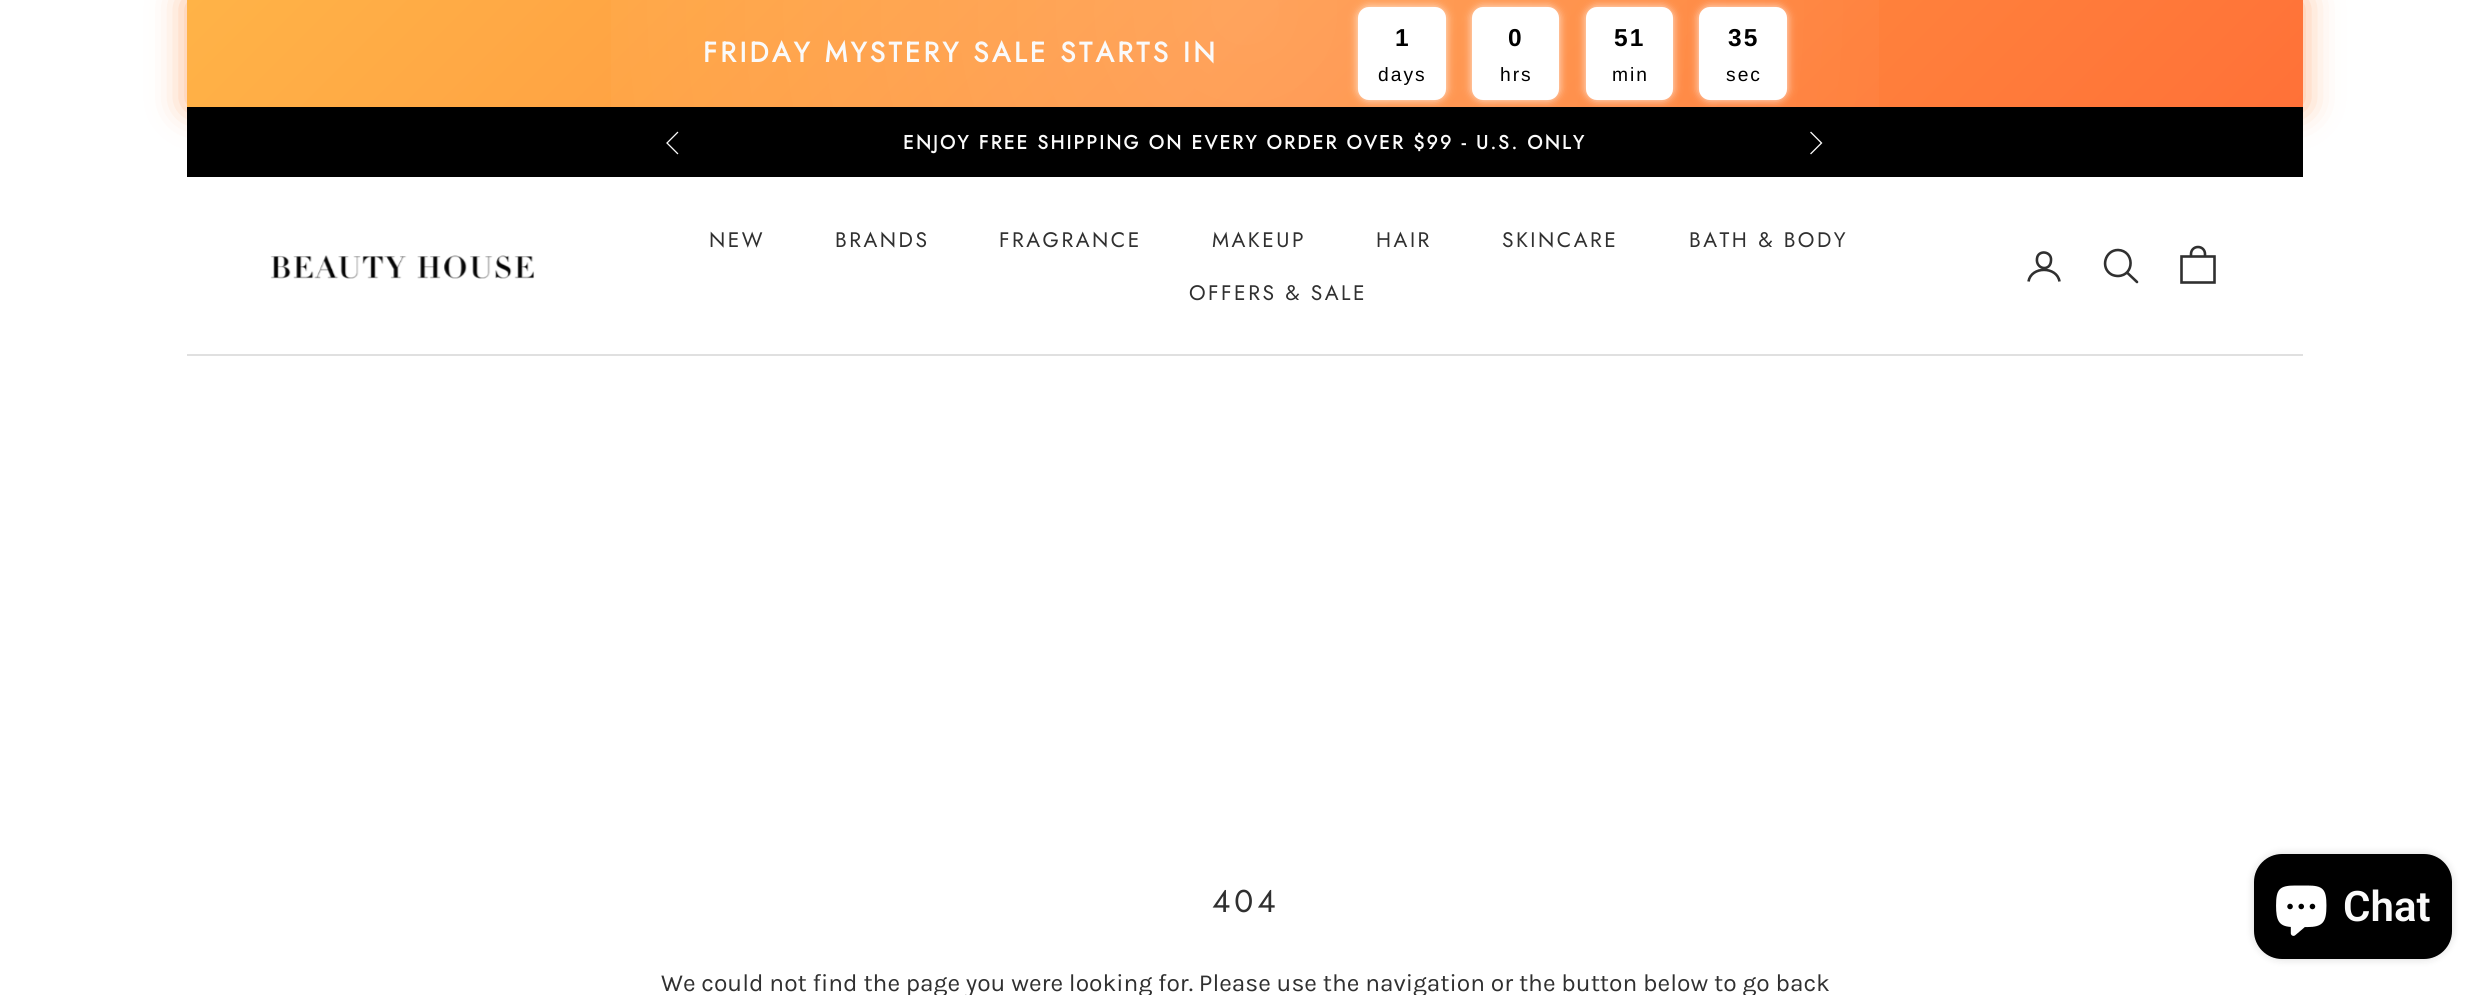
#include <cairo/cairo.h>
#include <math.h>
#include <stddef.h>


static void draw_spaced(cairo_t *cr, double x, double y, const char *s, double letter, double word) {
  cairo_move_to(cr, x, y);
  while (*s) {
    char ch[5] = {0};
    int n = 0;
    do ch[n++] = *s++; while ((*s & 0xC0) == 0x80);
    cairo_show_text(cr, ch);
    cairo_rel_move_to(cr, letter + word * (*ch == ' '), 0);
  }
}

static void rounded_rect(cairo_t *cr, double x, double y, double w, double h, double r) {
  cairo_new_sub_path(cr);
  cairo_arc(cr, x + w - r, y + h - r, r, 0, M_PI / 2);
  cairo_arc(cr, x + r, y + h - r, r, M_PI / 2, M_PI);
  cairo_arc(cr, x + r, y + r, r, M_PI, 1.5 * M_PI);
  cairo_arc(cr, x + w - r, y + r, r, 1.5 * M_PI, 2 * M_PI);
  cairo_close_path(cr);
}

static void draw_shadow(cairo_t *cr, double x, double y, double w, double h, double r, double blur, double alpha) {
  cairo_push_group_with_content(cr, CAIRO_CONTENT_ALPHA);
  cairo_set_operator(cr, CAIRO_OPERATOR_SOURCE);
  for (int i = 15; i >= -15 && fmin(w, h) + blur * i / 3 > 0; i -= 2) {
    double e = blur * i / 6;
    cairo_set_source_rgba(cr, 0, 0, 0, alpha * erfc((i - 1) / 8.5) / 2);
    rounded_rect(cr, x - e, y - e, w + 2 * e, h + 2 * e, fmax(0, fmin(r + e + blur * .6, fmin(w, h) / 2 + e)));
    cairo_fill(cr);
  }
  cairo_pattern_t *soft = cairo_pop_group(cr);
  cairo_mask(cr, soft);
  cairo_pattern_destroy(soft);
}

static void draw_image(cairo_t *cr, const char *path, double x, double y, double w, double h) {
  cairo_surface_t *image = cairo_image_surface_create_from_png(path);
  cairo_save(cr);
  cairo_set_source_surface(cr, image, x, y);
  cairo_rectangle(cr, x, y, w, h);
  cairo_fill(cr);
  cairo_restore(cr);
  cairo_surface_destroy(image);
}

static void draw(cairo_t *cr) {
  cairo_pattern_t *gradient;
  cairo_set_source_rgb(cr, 1, 1, 1);
  cairo_paint(cr);
  cairo_set_source_rgb(cr, 1, 100 / 255.0, 0);
  draw_shadow(cr, 187, 0, 2116, 107, 0, 17.5, 0.5);
  gradient = cairo_pattern_create_linear(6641, 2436, 2196, -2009);
  cairo_pattern_add_color_stop_rgba(gradient, 0, 1, 72 / 255.0, 0, 1);
  cairo_pattern_add_color_stop_rgba(gradient, 0.33, 1, 174 / 255.0, 0, 1);
  cairo_pattern_add_color_stop_rgba(gradient, 0.67, 1, 92 / 255.0, 51 / 255.0, 1);
  cairo_pattern_add_color_stop_rgba(gradient, 1, 1, 179 / 255.0, 71 / 255.0, 1);
  cairo_set_source(cr, gradient);
  cairo_pattern_destroy(gradient);
  cairo_rectangle(cr, 187, 0, 2116, 107);
  cairo_fill(cr);
  gradient = cairo_pattern_create_radial(1245, 11, 0, 1245, 11, 1062);
  cairo_pattern_add_color_stop_rgba(gradient, 0, 1, 1, 1, 0.15);
  cairo_pattern_add_color_stop_rgba(gradient, 0.7, 1, 1, 1, 0);
  cairo_set_source(cr, gradient);
  cairo_pattern_destroy(gradient);
  cairo_rectangle(cr, 611, 0, 1268, 107);
  cairo_fill(cr);
  cairo_set_source_rgb(cr, 0, 0, 0);
  cairo_rectangle(cr, 187, 107, 2116, 70);
  cairo_fill(cr);
  cairo_save(cr);
  cairo_rectangle(cr, 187, 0, 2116, 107);
  cairo_clip(cr);
  cairo_set_source_rgb(cr, 1, 1, 1);
  draw_shadow(cr, 1358, 7, 88, 93, 11, 4.5, 0.8);
  cairo_restore(cr);
  cairo_set_source_rgb(cr, 1, 1, 1);
  rounded_rect(cr, 1358, 7, 88, 93, 11);
  cairo_fill(cr);
  cairo_save(cr);
  cairo_rectangle(cr, 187, 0, 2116, 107);
  cairo_clip(cr);
  cairo_set_source_rgb(cr, 1, 1, 1);
  draw_shadow(cr, 1472, 7, 87, 93, 11, 4.5, 0.8);
  cairo_restore(cr);
  rounded_rect(cr, 1472, 7, 87, 93, 11);
  cairo_fill(cr);
  cairo_save(cr);
  cairo_rectangle(cr, 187, 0, 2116, 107);
  cairo_clip(cr);
  cairo_set_source_rgb(cr, 1, 1, 1);
  draw_shadow(cr, 1586, 7, 87, 93, 11, 4.5, 0.8);
  cairo_restore(cr);
  rounded_rect(cr, 1586, 7, 87, 93, 11);
  cairo_fill(cr);
  cairo_save(cr);
  cairo_rectangle(cr, 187, 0, 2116, 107);
  cairo_clip(cr);
  cairo_set_source_rgb(cr, 1, 1, 1);
  draw_shadow(cr, 1699, 7, 88, 93, 11, 4.5, 0.8);
  cairo_restore(cr);
  rounded_rect(cr, 1699, 7, 88, 93, 11);
  cairo_fill(cr);
  cairo_new_path(cr);
  cairo_move_to(cr, 677.5, 132.5);
  cairo_line_to(cr, 667, 143);
  cairo_line_to(cr, 677.5, 153.5);
  cairo_set_source_rgb(cr, 250 / 255.0, 250 / 255.0, 250 / 255.0);
  cairo_set_line_width(cr, 1.3);
  cairo_set_line_cap(cr, CAIRO_LINE_CAP_SQUARE);
  cairo_stroke(cr);
  cairo_new_path(cr);
  cairo_move_to(cr, 1811, 153.5);
  cairo_line_to(cr, 1821.5, 143);
  cairo_line_to(cr, 1811, 132.5);
  cairo_stroke(cr);
  cairo_set_source_rgb(cr, 224 / 255.0, 224 / 255.0, 224 / 255.0);
  cairo_rectangle(cr, 187, 354, 2116, 2);
  cairo_fill(cr);
  draw_image(cr, "images/1.png", 270, 255, 265, 24);
  cairo_new_path(cr);
  cairo_move_to(cr, 2051, 260.5);
  cairo_curve_to(cr, 2050.5, 272, 2035.5, 269.5, 2037, 258.5);
  cairo_curve_to(cr, 2038, 249.5, 2052, 251, 2051, 260.5);
  cairo_close_path(cr);
  cairo_set_source_rgb(cr, 48 / 255.0, 48 / 255.0, 48 / 255.0);
  cairo_set_line_width(cr, 2.6);
  cairo_set_line_cap(cr, CAIRO_LINE_CAP_ROUND);
  cairo_set_line_join(cr, CAIRO_LINE_JOIN_ROUND);
  cairo_stroke(cr);
  cairo_new_path(cr);
  cairo_move_to(cr, 2028.5, 281.5);
  cairo_curve_to(cr, 2031, 266, 2057, 266, 2059.5, 281.5);
  cairo_set_line_cap(cr, CAIRO_LINE_CAP_BUTT);
  cairo_set_line_join(cr, CAIRO_LINE_JOIN_MITER);
  cairo_stroke(cr);
  cairo_new_path(cr);
  cairo_move_to(cr, 2118, 250);
  cairo_curve_to(cr, 2105, 250, 2100, 268, 2111.5, 274.5);
  cairo_curve_to(cr, 2113.5, 275.5, 2116, 276, 2118, 276);
  cairo_curve_to(cr, 2135, 275.5, 2134.5, 250.5, 2118, 250);
  cairo_close_path(cr);
  cairo_stroke(cr);
  cairo_new_path(cr);
  cairo_move_to(cr, 2127.5, 273);
  cairo_line_to(cr, 2137, 282);
  cairo_set_line_cap(cr, CAIRO_LINE_CAP_ROUND);
  cairo_stroke(cr);
  cairo_new_path(cr);
  cairo_move_to(cr, 2214.5, 282.5);
  cairo_line_to(cr, 2214.5, 256.5);
  cairo_line_to(cr, 2181.5, 256.5);
  cairo_line_to(cr, 2181.5, 282.5);
  cairo_close_path(cr);
  cairo_move_to(cr, 2191, 255.5);
  cairo_line_to(cr, 2191, 254);
  cairo_curve_to(cr, 2191, 250, 2194, 247, 2198, 247);
  cairo_curve_to(cr, 2202, 247, 2205, 250, 2205, 254);
  cairo_line_to(cr, 2205, 255.5);
  cairo_set_line_cap(cr, CAIRO_LINE_CAP_BUTT);
  cairo_stroke(cr);
  cairo_set_source_rgb(cr, 0, 0, 0);
  draw_shadow(cr, 2254, 854, 198, 105, 28, 4.5, 0.15);
  cairo_set_source_rgb(cr, 0, 0, 0);
  rounded_rect(cr, 2254, 854, 198, 105, 28);
  cairo_fill(cr);
  draw_image(cr, "images/2.png", 2276, 885, 51, 51);
  cairo_select_font_face(cr, "Jost", CAIRO_FONT_SLANT_NORMAL, CAIRO_FONT_WEIGHT_BOLD);
  cairo_set_font_size(cr, 28);
  cairo_set_source_rgb(cr, 250 / 255.0, 250 / 255.0, 250 / 255.0);
  draw_spaced(cr, 703, 62, "FRIDAY MYSTERY SALE STARTS IN", 3.35, 0);
  cairo_select_font_face(cr, "Liberation Sans", CAIRO_FONT_SLANT_NORMAL, CAIRO_FONT_WEIGHT_BOLD);
  cairo_set_font_size(cr, 24.5);
  cairo_set_source_rgb(cr, 0, 0, 0);
  draw_spaced(cr, 1395, 46, "1", 2, 0);
  cairo_select_font_face(cr, "Liberation Sans", CAIRO_FONT_SLANT_NORMAL, CAIRO_FONT_WEIGHT_NORMAL);
  cairo_set_font_size(cr, 19.25);
  draw_spaced(cr, 1378, 81, "days", 2, 0);
  cairo_select_font_face(cr, "Liberation Sans", CAIRO_FONT_SLANT_NORMAL, CAIRO_FONT_WEIGHT_BOLD);
  cairo_set_font_size(cr, 24.5);
  draw_spaced(cr, 1508, 46, "0", 2, 0);
  cairo_select_font_face(cr, "Liberation Sans", CAIRO_FONT_SLANT_NORMAL, CAIRO_FONT_WEIGHT_NORMAL);
  cairo_set_font_size(cr, 19.25);
  draw_spaced(cr, 1500, 81, "hrs", 2, 0);
  cairo_select_font_face(cr, "Liberation Sans", CAIRO_FONT_SLANT_NORMAL, CAIRO_FONT_WEIGHT_BOLD);
  cairo_set_font_size(cr, 24.5);
  draw_spaced(cr, 1614, 46, "51", 2, 0);
  cairo_select_font_face(cr, "Liberation Sans", CAIRO_FONT_SLANT_NORMAL, CAIRO_FONT_WEIGHT_NORMAL);
  cairo_set_font_size(cr, 19.25);
  draw_spaced(cr, 1612, 81, "min", 2, 0);
  cairo_select_font_face(cr, "Liberation Sans", CAIRO_FONT_SLANT_NORMAL, CAIRO_FONT_WEIGHT_BOLD);
  cairo_set_font_size(cr, 24.5);
  draw_spaced(cr, 1728, 46, "35", 2, 0);
  cairo_select_font_face(cr, "Liberation Sans", CAIRO_FONT_SLANT_NORMAL, CAIRO_FONT_WEIGHT_NORMAL);
  cairo_set_font_size(cr, 19.25);
  draw_spaced(cr, 1726, 81, "sec", 2, 0);
  cairo_select_font_face(cr, "Jost", CAIRO_FONT_SLANT_NORMAL, CAIRO_FONT_WEIGHT_BOLD);
  cairo_set_source_rgb(cr, 250 / 255.0, 250 / 255.0, 250 / 255.0);
  draw_spaced(cr, 903, 149, "ENJOY FREE SHIPPING ON EVERY ORDER OVER $99 - U.S. ONLY", 2.3, 0);
  cairo_select_font_face(cr, "Jost", CAIRO_FONT_SLANT_NORMAL, CAIRO_FONT_WEIGHT_NORMAL);
  cairo_set_font_size(cr, 21);
  cairo_set_source_rgb(cr, 48 / 255.0, 48 / 255.0, 48 / 255.0);
  draw_spaced(cr, 709, 247, "NEW", 2.5, 0);
  draw_spaced(cr, 835, 247, "BRANDS", 2.5, 0);
  draw_spaced(cr, 999, 247, "FRAGRANCE", 2.5, 0);
  draw_spaced(cr, 1212, 247, "MAKEUP", 2.5, 0);
  draw_spaced(cr, 1376, 247, "HAIR", 2.5, 0);
  draw_spaced(cr, 1502, 247, "SKINCARE", 2.5, 0);
  draw_spaced(cr, 1689, 247, "BATH & BODY", 2.5, 0);
  draw_spaced(cr, 1189, 300, "OFFERS & SALE", 2.5, 0);
  cairo_set_font_size(cr, 31.5);
  draw_spaced(cr, 1212, 912, "404", 4, 0);
  cairo_select_font_face(cr, "Karla", CAIRO_FONT_SLANT_NORMAL, CAIRO_FONT_WEIGHT_NORMAL);
  cairo_set_font_size(cr, 24.5);
  cairo_move_to(cr, 661, 991);
  cairo_show_text(cr, "We could not find the page you were looking for. Please use the navigation or the button below to go back");
  cairo_select_font_face(cr, "Roboto SemiBold", CAIRO_FONT_SLANT_NORMAL, CAIRO_FONT_WEIGHT_NORMAL);
  cairo_set_font_size(cr, 42);
  cairo_set_source_rgb(cr, 250 / 255.0, 250 / 255.0, 250 / 255.0);
  cairo_move_to(cr, 2343, 921);
  cairo_show_text(cr, "Chat");
}

int main(void) {
  cairo_surface_t *surface = cairo_image_surface_create(CAIRO_FORMAT_RGB24, 2489, 995);
  cairo_t *cr = cairo_create(surface);
  cairo_font_options_t *options = cairo_font_options_create();
  cairo_font_options_set_hint_metrics(options, CAIRO_HINT_METRICS_OFF);
  cairo_font_options_set_hint_style(options, CAIRO_HINT_STYLE_NONE);
  cairo_set_font_options(cr, options);
  cairo_set_miter_limit(cr, 4);
  draw(cr);
  cairo_surface_write_to_png(surface, "out.png");
  cairo_font_options_destroy(options);
  cairo_destroy(cr);
  cairo_surface_destroy(surface);
  return 0;
}
